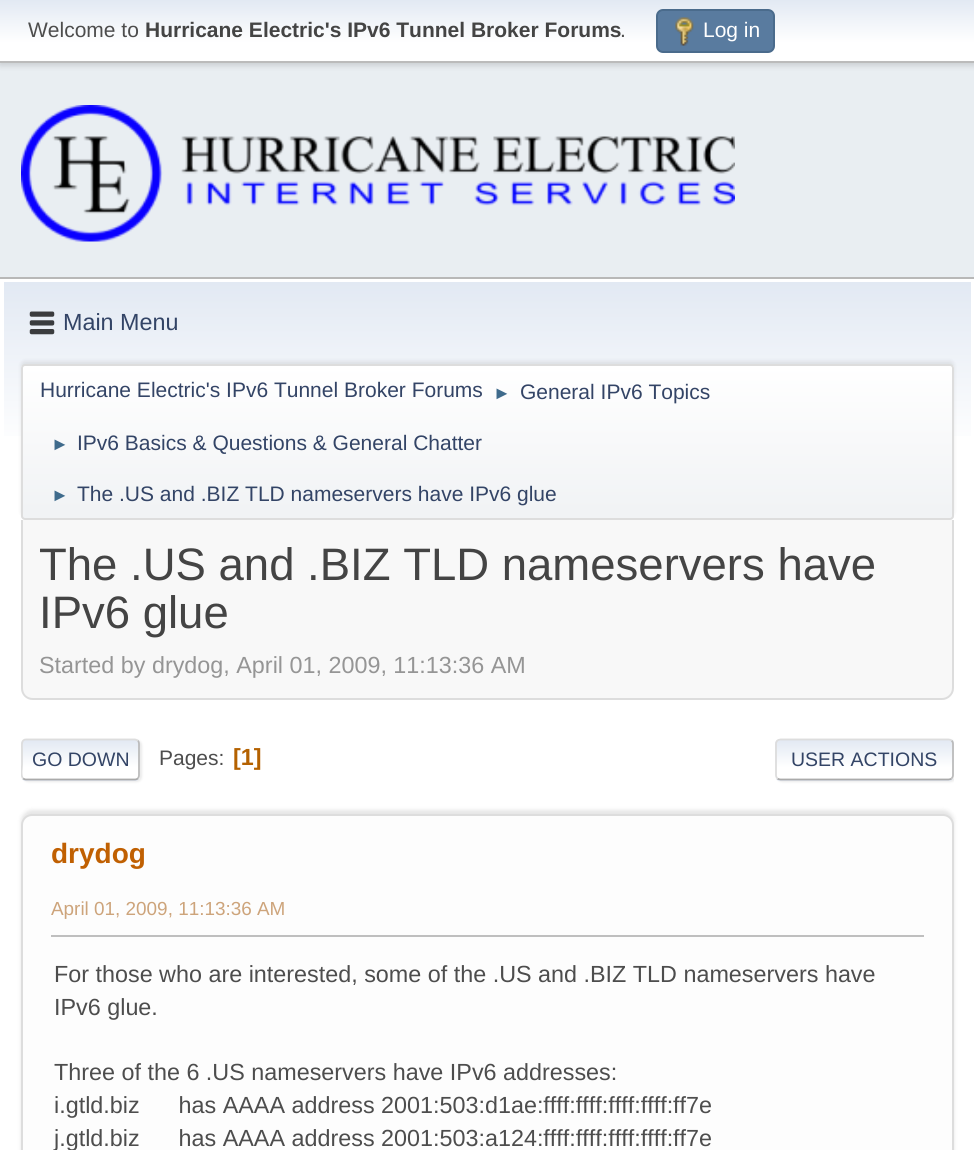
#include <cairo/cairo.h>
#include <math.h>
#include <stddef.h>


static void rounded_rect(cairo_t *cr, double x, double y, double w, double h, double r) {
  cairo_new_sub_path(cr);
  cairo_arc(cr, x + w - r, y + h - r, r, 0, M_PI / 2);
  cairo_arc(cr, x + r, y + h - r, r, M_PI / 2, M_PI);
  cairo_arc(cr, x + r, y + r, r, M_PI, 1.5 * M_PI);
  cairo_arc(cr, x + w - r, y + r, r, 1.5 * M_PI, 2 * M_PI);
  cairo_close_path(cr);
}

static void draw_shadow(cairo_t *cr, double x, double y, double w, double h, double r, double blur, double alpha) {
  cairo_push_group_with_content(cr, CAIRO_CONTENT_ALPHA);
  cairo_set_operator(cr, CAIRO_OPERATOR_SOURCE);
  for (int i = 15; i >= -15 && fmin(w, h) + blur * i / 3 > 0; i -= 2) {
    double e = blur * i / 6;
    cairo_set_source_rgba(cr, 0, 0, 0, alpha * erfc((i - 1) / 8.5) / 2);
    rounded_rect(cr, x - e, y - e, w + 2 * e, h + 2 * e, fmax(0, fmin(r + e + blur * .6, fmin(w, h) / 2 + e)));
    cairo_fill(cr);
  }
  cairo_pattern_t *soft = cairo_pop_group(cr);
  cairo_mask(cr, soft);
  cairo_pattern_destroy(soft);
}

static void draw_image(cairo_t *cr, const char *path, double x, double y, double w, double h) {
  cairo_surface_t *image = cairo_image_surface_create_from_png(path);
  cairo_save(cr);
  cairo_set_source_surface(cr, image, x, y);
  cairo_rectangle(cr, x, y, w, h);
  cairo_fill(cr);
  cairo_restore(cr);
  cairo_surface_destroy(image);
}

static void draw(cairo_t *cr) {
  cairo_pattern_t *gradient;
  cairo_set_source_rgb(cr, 233 / 255.0, 238 / 255.0, 242 / 255.0);
  cairo_paint(cr);
  cairo_set_source_rgb(cr, 0, 0, 0);
  draw_shadow(cr, 0, 2, 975, 63, 0, 3.5, 0.16);
  gradient = cairo_pattern_create_linear(487, 0, 487, 61);
  cairo_pattern_add_color_stop_rgba(gradient, 0, 226 / 255.0, 233 / 255.0, 243 / 255.0, 1);
  cairo_pattern_add_color_stop_rgba(gradient, 0.7, 1, 1, 1, 1);
  cairo_set_source(cr, gradient);
  cairo_pattern_destroy(gradient);
  cairo_rectangle(cr, 0, 0, 974, 61);
  cairo_fill(cr);
  cairo_set_source_rgb(cr, 187 / 255.0, 187 / 255.0, 187 / 255.0);
  cairo_rectangle(cr, 0, 61, 974, 2);
  cairo_fill(cr);
  cairo_set_source_rgb(cr, 89 / 255.0, 123 / 255.0, 159 / 255.0);
  rounded_rect(cr, 657, 10, 117, 42, 6);
  cairo_fill_preserve(cr);
  cairo_set_source_rgb(cr, 74 / 255.0, 107 / 255.0, 140 / 255.0);
  cairo_stroke(cr);
  draw_image(cr, "images/1.png", 675, 17, 19, 29);
  draw_image(cr, "images/2.png", 21, 105, 714, 137);
  cairo_set_source_rgb(cr, 1, 1, 1);
  cairo_rectangle(cr, 0, 279, 974, 871);
  cairo_fill(cr);
  cairo_set_source_rgb(cr, 184 / 255.0, 184 / 255.0, 184 / 255.0);
  cairo_rectangle(cr, 0, 277, 974, 2);
  cairo_fill(cr);
  gradient = cairo_pattern_create_linear(487, 282, 487, 523);
  cairo_pattern_add_color_stop_rgba(gradient, 0, 226 / 255.0, 233 / 255.0, 243 / 255.0, 1);
  cairo_pattern_add_color_stop_rgba(gradient, 0.7, 1, 1, 1, 1);
  cairo_set_source(cr, gradient);
  cairo_pattern_destroy(gradient);
  cairo_rectangle(cr, 4, 282, 967, 154);
  cairo_fill(cr);
  draw_image(cr, "images/3.png", 29, 311, 26, 24);
  cairo_set_source_rgb(cr, 0, 0, 0);
  draw_shadow(cr, 21, 361, 933, 155, 4, 2, 0.08);
  cairo_save(cr);
  rounded_rect(cr, 21, 364, 933, 156, 4);
  cairo_clip(cr);
  gradient = cairo_pattern_create_linear(487, 366, 487, 518);
  cairo_pattern_add_color_stop_rgba(gradient, 0, 1, 1, 1, 1);
  cairo_pattern_add_color_stop_rgba(gradient, 0.95, 241 / 255.0, 243 / 255.0, 245 / 255.0, 1);
  cairo_set_source(cr, gradient);
  cairo_pattern_destroy(gradient);
  cairo_rectangle(cr, 21, 366, 933, 152);
  cairo_fill(cr);
  cairo_restore(cr);
  rounded_rect(cr, 22, 365, 931, 154, 3);
  cairo_set_source_rgb(cr, 221 / 255.0, 221 / 255.0, 221 / 255.0);
  cairo_stroke(cr);
  cairo_set_source_rgb(cr, 248 / 255.0, 248 / 255.0, 248 / 255.0);
  cairo_new_path(cr);
  cairo_move_to(cr, 21, 520);
  cairo_line_to(cr, 954, 520);
  cairo_line_to(cr, 954, 688);
  cairo_curve_to(cr, 954, 694.5, 948.5, 700, 942, 700);
  cairo_line_to(cr, 33, 700);
  cairo_curve_to(cr, 26.5, 700, 21, 694.5, 21, 688);
  cairo_close_path(cr);
  cairo_fill(cr);
  cairo_set_source_rgb(cr, 221 / 255.0, 221 / 255.0, 221 / 255.0);
  cairo_set_fill_rule(cr, CAIRO_FILL_RULE_EVEN_ODD);
  cairo_new_path(cr);
  cairo_move_to(cr, 21, 520);
  cairo_line_to(cr, 954, 520);
  cairo_line_to(cr, 954, 688);
  cairo_curve_to(cr, 954, 695, 948, 700, 942, 700);
  cairo_line_to(cr, 33, 700);
  cairo_curve_to(cr, 26, 700, 21, 695, 21, 688);
  cairo_close_path(cr);
  cairo_move_to(cr, 23, 520);
  cairo_line_to(cr, 952, 520);
  cairo_line_to(cr, 952, 688);
  cairo_curve_to(cr, 952, 694, 947, 698, 942, 698);
  cairo_line_to(cr, 33, 698);
  cairo_curve_to(cr, 27, 698, 23, 694, 23, 688);
  cairo_close_path(cr);
  cairo_fill(cr);
  cairo_set_source_rgb(cr, 221 / 255.0, 221 / 255.0, 221 / 255.0);
  draw_shadow(cr, 23, 740, 119, 42, 5, 1, 0.57);
  cairo_save(cr);
  cairo_set_fill_rule(cr, CAIRO_FILL_RULE_WINDING);
  rounded_rect(cr, 21, 739, 119, 42, 5);
  cairo_clip(cr);
  gradient = cairo_pattern_create_linear(81, 740, 81, 779);
  cairo_pattern_add_color_stop_rgba(gradient, 0, 226 / 255.0, 233 / 255.0, 243 / 255.0, 1);
  cairo_pattern_add_color_stop_rgba(gradient, 0.7, 1, 1, 1, 1);
  cairo_set_source(cr, gradient);
  cairo_pattern_destroy(gradient);
  cairo_rectangle(cr, 21, 740, 119, 39);
  cairo_fill(cr);
  gradient = cairo_pattern_create_linear(81, 779, 81, 817);
  cairo_pattern_add_color_stop_rgba(gradient, 0, 226 / 255.0, 233 / 255.0, 243 / 255.0, 1);
  cairo_pattern_add_color_stop_rgba(gradient, 0.7, 1, 1, 1, 1);
  cairo_set_source(cr, gradient);
  cairo_pattern_destroy(gradient);
  cairo_rectangle(cr, 21, 779, 119, 2);
  cairo_fill(cr);
  cairo_restore(cr);
  cairo_new_path(cr);
  cairo_move_to(cr, 138, 740.5);
  cairo_curve_to(cr, 138.5, 741.5, 139, 742.5, 139, 744);
  cairo_line_to(cr, 139, 775);
  cairo_curve_to(cr, 139, 776.5, 138.5, 777.5, 138, 778.5);
  cairo_set_source_rgb(cr, 187 / 255.0, 187 / 255.0, 187 / 255.0);
  cairo_set_line_width(cr, 1.8);
  cairo_stroke(cr);
  cairo_new_path(cr);
  cairo_move_to(cr, 138, 778.5);
  cairo_curve_to(cr, 137, 779, 136, 779.5, 135, 779.5);
  cairo_line_to(cr, 26, 779.5);
  cairo_curve_to(cr, 25, 779.5, 24, 779, 23, 778.5);
  cairo_set_source_rgb(cr, 170 / 255.0, 170 / 255.0, 170 / 255.0);
  cairo_stroke(cr);
  cairo_save(cr);
  cairo_set_fill_rule(cr, CAIRO_FILL_RULE_WINDING);
  cairo_rectangle(cr, 21, 726, 933, 67);
  cairo_clip(cr);
  cairo_new_path(cr);
  cairo_move_to(cr, 23, 778.5);
  cairo_curve_to(cr, 20.5, 775.5, 22, 768, 22, 765);
  cairo_line_to(cr, 22, 749);
  cairo_curve_to(cr, 22, 745.5, 21, 739.5, 26, 739.5);
  cairo_line_to(cr, 135, 739.5);
  cairo_line_to(cr, 138, 740.5);
  cairo_set_source_rgb(cr, 221 / 255.0, 221 / 255.0, 221 / 255.0);
  cairo_stroke(cr);
  cairo_restore(cr);
  cairo_save(cr);
  cairo_set_fill_rule(cr, CAIRO_FILL_RULE_WINDING);
  cairo_rectangle(cr, 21, 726, 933, 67);
  cairo_clip(cr);
  cairo_set_source_rgb(cr, 221 / 255.0, 221 / 255.0, 221 / 255.0);
  draw_shadow(cr, 777, 740, 179, 42, 5, 1, 0.57);
  cairo_restore(cr);
  cairo_save(cr);
  cairo_set_fill_rule(cr, CAIRO_FILL_RULE_WINDING);
  rounded_rect(cr, 775, 739, 179, 42, 5);
  cairo_clip(cr);
  gradient = cairo_pattern_create_linear(865, 740, 865, 779);
  cairo_pattern_add_color_stop_rgba(gradient, 0, 226 / 255.0, 233 / 255.0, 243 / 255.0, 1);
  cairo_pattern_add_color_stop_rgba(gradient, 0.7, 1, 1, 1, 1);
  cairo_set_source(cr, gradient);
  cairo_pattern_destroy(gradient);
  cairo_rectangle(cr, 775, 740, 179, 39);
  cairo_fill(cr);
  gradient = cairo_pattern_create_linear(865, 779, 865, 817);
  cairo_pattern_add_color_stop_rgba(gradient, 0, 226 / 255.0, 233 / 255.0, 243 / 255.0, 1);
  cairo_pattern_add_color_stop_rgba(gradient, 0.7, 1, 1, 1, 1);
  cairo_set_source(cr, gradient);
  cairo_pattern_destroy(gradient);
  cairo_rectangle(cr, 775, 779, 179, 2);
  cairo_fill(cr);
  cairo_restore(cr);
  cairo_new_path(cr);
  cairo_move_to(cr, 951.5, 740.5);
  cairo_curve_to(cr, 952.5, 741.5, 953, 742.5, 953, 744);
  cairo_line_to(cr, 953, 775);
  cairo_curve_to(cr, 953, 776.5, 952.5, 777.5, 951.5, 778.5);
  cairo_set_source_rgb(cr, 187 / 255.0, 187 / 255.0, 187 / 255.0);
  cairo_stroke(cr);
  cairo_new_path(cr);
  cairo_move_to(cr, 951.5, 778.5);
  cairo_curve_to(cr, 951, 779, 949.5, 779.5, 948.5, 779.5);
  cairo_line_to(cr, 780.5, 779.5);
  cairo_curve_to(cr, 779.5, 779.5, 778, 779, 777.5, 778.5);
  cairo_set_source_rgb(cr, 170 / 255.0, 170 / 255.0, 170 / 255.0);
  cairo_stroke(cr);
  cairo_new_path(cr);
  cairo_move_to(cr, 777.5, 778.5);
  cairo_curve_to(cr, 776.5, 777.5, 776, 776.5, 776, 775);
  cairo_line_to(cr, 776, 744);
  cairo_curve_to(cr, 776, 742.5, 776.5, 741.5, 777.5, 740.5);
  cairo_curve_to(cr, 778, 740, 779.5, 739.5, 780.5, 739.5);
  cairo_line_to(cr, 948.5, 739.5);
  cairo_curve_to(cr, 949.5, 739.5, 951, 740, 951.5, 740.5);
  cairo_set_source_rgb(cr, 221 / 255.0, 221 / 255.0, 221 / 255.0);
  cairo_stroke(cr);
  cairo_set_source_rgb(cr, 0, 0, 0);
  draw_shadow(cr, 21, 810, 933, 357, 11, 2, 0.1);
  cairo_set_source_rgb(cr, 253 / 255.0, 253 / 255.0, 253 / 255.0);
  rounded_rect(cr, 22, 815, 931, 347, 10);
  cairo_fill_preserve(cr);
  cairo_set_source_rgb(cr, 221 / 255.0, 221 / 255.0, 221 / 255.0);
  cairo_set_line_width(cr, 2);
  cairo_stroke(cr);
  cairo_set_source_rgb(cr, 191 / 255.0, 191 / 255.0, 191 / 255.0);
  cairo_rectangle(cr, 51, 935, 873, 2);
  cairo_fill(cr);
  cairo_select_font_face(cr, "Liberation Sans", CAIRO_FONT_SLANT_NORMAL, CAIRO_FONT_WEIGHT_NORMAL);
  cairo_set_font_size(cr, 21);
  cairo_set_source_rgb(cr, 77 / 255.0, 77 / 255.0, 77 / 255.0);
  cairo_move_to(cr, 28, 37);
  cairo_show_text(cr, "Welcome to");
  cairo_select_font_face(cr, "Liberation Sans", CAIRO_FONT_SLANT_NORMAL, CAIRO_FONT_WEIGHT_BOLD);
  cairo_set_source_rgb(cr, 68 / 255.0, 68 / 255.0, 68 / 255.0);
  cairo_move_to(cr, 145, 37);
  cairo_show_text(cr, "Hurricane Electric's IPv6 Tunnel Broker Forums");
  cairo_select_font_face(cr, "Liberation Sans", CAIRO_FONT_SLANT_NORMAL, CAIRO_FONT_WEIGHT_NORMAL);
  cairo_set_source_rgb(cr, 77 / 255.0, 77 / 255.0, 77 / 255.0);
  cairo_move_to(cr, 620, 37);
  cairo_show_text(cr, ".");
  cairo_set_source_rgb(cr, 1, 1, 1);
  cairo_move_to(cr, 703, 37);
  cairo_show_text(cr, "Log in");
  cairo_set_font_size(cr, 23.35);
  cairo_set_source_rgb(cr, 51 / 255.0, 68 / 255.0, 102 / 255.0);
  cairo_move_to(cr, 63, 330);
  cairo_show_text(cr, "Main Menu");
  cairo_set_font_size(cr, 21);
  cairo_move_to(cr, 40, 397);
  cairo_show_text(cr, "Hurricane Electric's IPv6 Tunnel Broker Forums");
  cairo_set_font_size(cr, 18);
  cairo_set_source_rgb(cr, 63 / 255.0, 107 / 255.0, 140 / 255.0);
  cairo_move_to(cr, 493, 399);
  cairo_show_text(cr, "►");
  cairo_set_font_size(cr, 21);
  cairo_set_source_rgb(cr, 51 / 255.0, 68 / 255.0, 102 / 255.0);
  cairo_move_to(cr, 520, 399);
  cairo_show_text(cr, "General IPv6 Topics");
  cairo_set_font_size(cr, 18);
  cairo_set_source_rgb(cr, 63 / 255.0, 107 / 255.0, 140 / 255.0);
  cairo_move_to(cr, 51, 450);
  cairo_show_text(cr, "►");
  cairo_set_font_size(cr, 21);
  cairo_set_source_rgb(cr, 51 / 255.0, 68 / 255.0, 102 / 255.0);
  cairo_move_to(cr, 77, 450);
  cairo_show_text(cr, "IPv6 Basics & Questions & General Chatter");
  cairo_set_font_size(cr, 18);
  cairo_set_source_rgb(cr, 63 / 255.0, 107 / 255.0, 140 / 255.0);
  cairo_move_to(cr, 51, 501);
  cairo_show_text(cr, "►");
  cairo_set_font_size(cr, 21);
  cairo_set_source_rgb(cr, 51 / 255.0, 68 / 255.0, 102 / 255.0);
  cairo_move_to(cr, 77, 501);
  cairo_show_text(cr, "The .US and .BIZ TLD nameservers have IPv6 glue");
  cairo_set_font_size(cr, 45.5);
  cairo_set_source_rgb(cr, 68 / 255.0, 68 / 255.0, 68 / 255.0);
  cairo_move_to(cr, 39, 580);
  cairo_show_text(cr, "The .US and .BIZ TLD nameservers have");
  cairo_move_to(cr, 39, 628);
  cairo_show_text(cr, "IPv6 glue");
  cairo_set_font_size(cr, 23.35);
  cairo_set_source_rgb(cr, 149 / 255.0, 149 / 255.0, 149 / 255.0);
  cairo_move_to(cr, 39, 673);
  cairo_show_text(cr, "Started by drydog, April 01, 2009, 11:13:36 AM");
  cairo_set_font_size(cr, 19.5);
  cairo_set_source_rgb(cr, 51 / 255.0, 68 / 255.0, 102 / 255.0);
  cairo_move_to(cr, 32, 766);
  cairo_show_text(cr, "GO DOWN");
  cairo_set_font_size(cr, 21);
  cairo_set_source_rgb(cr, 77 / 255.0, 77 / 255.0, 77 / 255.0);
  cairo_move_to(cr, 159, 765);
  cairo_show_text(cr, "Pages:");
  cairo_select_font_face(cr, "Liberation Sans", CAIRO_FONT_SLANT_NORMAL, CAIRO_FONT_WEIGHT_BOLD);
  cairo_set_font_size(cr, 23.35);
  cairo_set_source_rgb(cr, 180 / 255.0, 97 / 255.0, 0);
  cairo_move_to(cr, 233, 765);
  cairo_show_text(cr, "[1]");
  cairo_select_font_face(cr, "Liberation Sans", CAIRO_FONT_SLANT_NORMAL, CAIRO_FONT_WEIGHT_NORMAL);
  cairo_set_font_size(cr, 19.5);
  cairo_set_source_rgb(cr, 51 / 255.0, 68 / 255.0, 102 / 255.0);
  cairo_move_to(cr, 791, 766);
  cairo_show_text(cr, "USER ACTIONS");
  cairo_select_font_face(cr, "Liberation Sans", CAIRO_FONT_SLANT_NORMAL, CAIRO_FONT_WEIGHT_BOLD);
  cairo_set_font_size(cr, 28);
  cairo_set_source_rgb(cr, 192 / 255.0, 96 / 255.0, 2 / 255.0);
  cairo_move_to(cr, 51, 863);
  cairo_show_text(cr, "drydog");
  cairo_select_font_face(cr, "Liberation Sans", CAIRO_FONT_SLANT_NORMAL, CAIRO_FONT_WEIGHT_NORMAL);
  cairo_set_font_size(cr, 18.9);
  cairo_set_source_rgb(cr, 205 / 255.0, 164 / 255.0, 123 / 255.0);
  cairo_move_to(cr, 51, 915);
  cairo_show_text(cr, "April 01, 2009, 11:13:36 AM");
  cairo_set_font_size(cr, 23.35);
  cairo_set_source_rgb(cr, 77 / 255.0, 77 / 255.0, 77 / 255.0);
  cairo_move_to(cr, 54, 982);
  cairo_show_text(cr, "For those who are interested, some of the .US and .BIZ TLD nameservers have");
  cairo_move_to(cr, 54, 1015);
  cairo_show_text(cr, "IPv6 glue.");
  cairo_move_to(cr, 54, 1080);
  cairo_show_text(cr, "Three of the 6 .US nameservers have IPv6 addresses:");
  cairo_move_to(cr, 54, 1113);
  cairo_show_text(cr, "i.gtld.biz      has AAAA address 2001:503:d1ae:ffff:ffff:ffff:ffff:ff7e");
  cairo_move_to(cr, 54, 1146);
  cairo_show_text(cr, "j.gtld.biz      has AAAA address 2001:503:a124:ffff:ffff:ffff:ffff:ff7e");
}

int main(void) {
  cairo_surface_t *surface = cairo_image_surface_create(CAIRO_FORMAT_RGB24, 974, 1150);
  cairo_t *cr = cairo_create(surface);
  cairo_font_options_t *options = cairo_font_options_create();
  cairo_font_options_set_hint_metrics(options, CAIRO_HINT_METRICS_OFF);
  cairo_font_options_set_hint_style(options, CAIRO_HINT_STYLE_NONE);
  cairo_set_font_options(cr, options);
  cairo_set_miter_limit(cr, 4);
  draw(cr);
  cairo_surface_write_to_png(surface, "out.png");
  cairo_font_options_destroy(options);
  cairo_destroy(cr);
  cairo_surface_destroy(surface);
  return 0;
}
